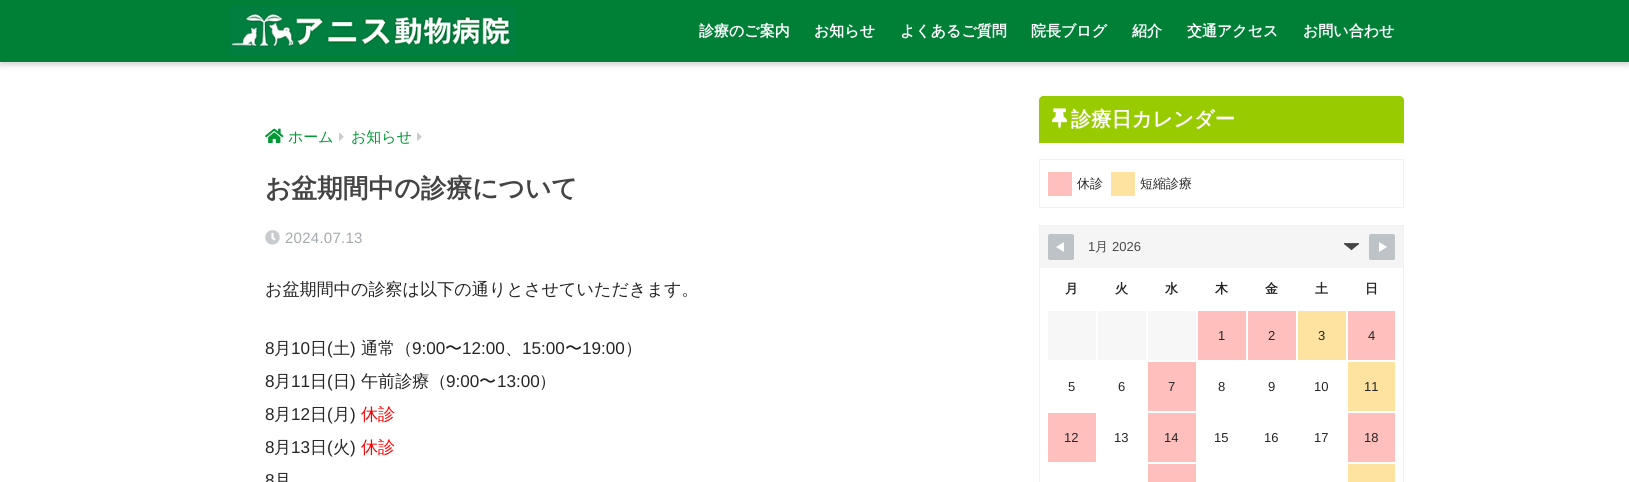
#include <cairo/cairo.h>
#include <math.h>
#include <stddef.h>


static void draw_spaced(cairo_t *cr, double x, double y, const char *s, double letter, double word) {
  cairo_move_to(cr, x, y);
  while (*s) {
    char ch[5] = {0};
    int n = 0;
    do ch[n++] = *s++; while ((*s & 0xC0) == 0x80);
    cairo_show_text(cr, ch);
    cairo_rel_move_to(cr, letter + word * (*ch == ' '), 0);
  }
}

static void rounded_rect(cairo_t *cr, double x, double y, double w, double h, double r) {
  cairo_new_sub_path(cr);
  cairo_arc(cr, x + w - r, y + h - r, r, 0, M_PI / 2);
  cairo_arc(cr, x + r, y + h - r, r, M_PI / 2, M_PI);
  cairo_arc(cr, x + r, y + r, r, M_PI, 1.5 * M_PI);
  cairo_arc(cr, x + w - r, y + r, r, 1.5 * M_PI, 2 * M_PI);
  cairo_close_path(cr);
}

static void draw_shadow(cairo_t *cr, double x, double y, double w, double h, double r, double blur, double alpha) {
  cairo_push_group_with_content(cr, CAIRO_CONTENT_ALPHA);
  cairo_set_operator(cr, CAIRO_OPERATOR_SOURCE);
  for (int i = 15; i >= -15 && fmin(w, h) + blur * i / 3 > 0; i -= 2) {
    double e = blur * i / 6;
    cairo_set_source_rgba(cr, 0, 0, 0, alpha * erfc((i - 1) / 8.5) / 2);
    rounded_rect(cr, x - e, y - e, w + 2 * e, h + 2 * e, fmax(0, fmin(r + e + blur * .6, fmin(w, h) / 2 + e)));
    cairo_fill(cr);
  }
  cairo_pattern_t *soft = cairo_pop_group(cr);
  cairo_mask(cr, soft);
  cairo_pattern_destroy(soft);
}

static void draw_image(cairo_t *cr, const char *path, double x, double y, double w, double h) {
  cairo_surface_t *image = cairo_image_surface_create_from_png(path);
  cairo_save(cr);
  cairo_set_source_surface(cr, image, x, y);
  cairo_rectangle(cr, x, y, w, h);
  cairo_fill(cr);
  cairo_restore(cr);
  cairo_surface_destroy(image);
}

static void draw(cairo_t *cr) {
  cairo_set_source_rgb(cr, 1, 1, 1);
  cairo_paint(cr);
  cairo_set_source_rgb(cr, 0, 0, 0);
  draw_shadow(cr, 0, 3, 1629, 62, 0, 3, 0.18);
  cairo_set_source_rgb(cr, 0, 127 / 255.0, 55 / 255.0);
  cairo_rectangle(cr, 0, 0, 1629, 62);
  cairo_fill(cr);
  draw_image(cr, "images/1.png", 230, 6, 285, 50);
  draw_image(cr, "images/2.png", 265, 128, 19, 15);
  draw_image(cr, "images/3.png", 339, 132, 5, 9);
  draw_image(cr, "images/3.png", 417, 132, 5, 9);
  draw_image(cr, "images/4.png", 265, 230, 15, 15);
  cairo_set_source_rgb(cr, 153 / 255.0, 204 / 255.0, 0);
  cairo_new_path(cr);
  cairo_move_to(cr, 1043, 96);
  cairo_line_to(cr, 1400, 96);
  cairo_curve_to(cr, 1402, 96, 1404, 98, 1404, 100);
  cairo_line_to(cr, 1404, 143);
  cairo_line_to(cr, 1039, 143);
  cairo_line_to(cr, 1039, 100);
  cairo_curve_to(cr, 1039, 98, 1041, 96, 1043, 96);
  cairo_close_path(cr);
  cairo_fill(cr);
  draw_image(cr, "images/5.png", 1052, 108, 16, 21);
  cairo_rectangle(cr, 1039.5, 159.5, 364, 48);
  cairo_set_source_rgb(cr, 241 / 255.0, 241 / 255.0, 241 / 255.0);
  cairo_set_line_width(cr, 1);
  cairo_stroke(cr);
  cairo_set_source_rgb(cr, 1, 192 / 255.0, 189 / 255.0);
  cairo_rectangle(cr, 1048, 172, 24, 24);
  cairo_fill(cr);
  cairo_set_source_rgb(cr, 254 / 255.0, 226 / 255.0, 160 / 255.0);
  cairo_rectangle(cr, 1111, 172, 24, 24);
  cairo_fill(cr);
  cairo_rectangle(cr, 1039.5, 225.5, 364, 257);
  cairo_set_source_rgb(cr, 241 / 255.0, 241 / 255.0, 241 / 255.0);
  cairo_stroke(cr);
  cairo_set_source_rgb(cr, 245 / 255.0, 245 / 255.0, 245 / 255.0);
  cairo_rectangle(cr, 1040, 226, 363, 42);
  cairo_fill(cr);
  cairo_set_source_rgb(cr, 189 / 255.0, 195 / 255.0, 199 / 255.0);
  rounded_rect(cr, 1048, 234, 26, 26, 2);
  cairo_fill(cr);
  cairo_set_source_rgb(cr, 1, 1, 1);
  cairo_new_path(cr);
  cairo_move_to(cr, 1064, 242);
  cairo_line_to(cr, 1064, 252);
  cairo_line_to(cr, 1056, 247);
  cairo_close_path(cr);
  cairo_fill(cr);
  draw_image(cr, "images/6.png", 1344, 243, 15, 7);
  cairo_set_source_rgb(cr, 189 / 255.0, 195 / 255.0, 199 / 255.0);
  rounded_rect(cr, 1369, 234, 26, 26, 2);
  cairo_fill(cr);
  cairo_set_source_rgb(cr, 1, 1, 1);
  cairo_new_path(cr);
  cairo_move_to(cr, 1379, 252);
  cairo_line_to(cr, 1379, 242);
  cairo_line_to(cr, 1387, 247);
  cairo_close_path(cr);
  cairo_fill(cr);
  cairo_set_source_rgb(cr, 247 / 255.0, 247 / 255.0, 247 / 255.0);
  cairo_rectangle(cr, 1048, 311, 48, 49);
  cairo_fill(cr);
  cairo_rectangle(cr, 1098, 311, 48, 49);
  cairo_fill(cr);
  cairo_rectangle(cr, 1148, 311, 48, 49);
  cairo_fill(cr);
  cairo_set_source_rgb(cr, 1, 192 / 255.0, 189 / 255.0);
  cairo_rectangle(cr, 1198, 311, 48, 49);
  cairo_fill(cr);
  cairo_rectangle(cr, 1248, 311, 48, 49);
  cairo_fill(cr);
  cairo_set_source_rgb(cr, 254 / 255.0, 226 / 255.0, 160 / 255.0);
  cairo_rectangle(cr, 1298, 311, 48, 49);
  cairo_fill(cr);
  cairo_set_source_rgb(cr, 1, 192 / 255.0, 189 / 255.0);
  cairo_rectangle(cr, 1348, 311, 47, 49);
  cairo_fill(cr);
  cairo_rectangle(cr, 1148, 362, 48, 49);
  cairo_fill(cr);
  cairo_set_source_rgb(cr, 254 / 255.0, 226 / 255.0, 160 / 255.0);
  cairo_rectangle(cr, 1348, 362, 47, 49);
  cairo_fill(cr);
  cairo_set_source_rgb(cr, 1, 192 / 255.0, 189 / 255.0);
  cairo_rectangle(cr, 1048, 413, 48, 49);
  cairo_fill(cr);
  cairo_rectangle(cr, 1148, 413, 48, 49);
  cairo_fill(cr);
  cairo_rectangle(cr, 1348, 413, 47, 49);
  cairo_fill(cr);
  cairo_rectangle(cr, 1148, 464, 48, 18);
  cairo_fill(cr);
  cairo_set_source_rgb(cr, 254 / 255.0, 226 / 255.0, 160 / 255.0);
  cairo_rectangle(cr, 1348, 464, 47, 18);
  cairo_fill(cr);
  cairo_select_font_face(cr, "WenQuanYi Zen Hei", CAIRO_FONT_SLANT_NORMAL, CAIRO_FONT_WEIGHT_BOLD);
  cairo_set_font_size(cr, 15);
  cairo_set_source_rgb(cr, 1, 1, 1);
  cairo_move_to(cr, 699, 36);
  cairo_show_text(cr, "診療のご案内");
  cairo_move_to(cr, 814, 36);
  cairo_show_text(cr, "お知らせ");
  cairo_move_to(cr, 900, 36);
  cairo_show_text(cr, "よくあるご質問");
  cairo_move_to(cr, 1031, 36);
  cairo_show_text(cr, "院長ブログ");
  cairo_move_to(cr, 1132, 36);
  cairo_show_text(cr, "紹介");
  cairo_move_to(cr, 1187, 36);
  cairo_show_text(cr, "交通アクセス");
  cairo_move_to(cr, 1303, 36);
  cairo_show_text(cr, "お問い合わせ");
  cairo_select_font_face(cr, "WenQuanYi Zen Hei Medium", CAIRO_FONT_SLANT_NORMAL, CAIRO_FONT_WEIGHT_NORMAL);
  cairo_set_source_rgb(cr, 0, 153 / 255.0, 51 / 255.0);
  cairo_move_to(cr, 288, 142);
  cairo_show_text(cr, "ホーム");
  cairo_move_to(cr, 351, 142);
  cairo_show_text(cr, "お知らせ");
  cairo_select_font_face(cr, "WenQuanYi Zen Hei", CAIRO_FONT_SLANT_NORMAL, CAIRO_FONT_WEIGHT_BOLD);
  cairo_set_font_size(cr, 25.75);
  cairo_set_source_rgb(cr, 68 / 255.0, 68 / 255.0, 68 / 255.0);
  cairo_move_to(cr, 265, 197);
  cairo_show_text(cr, "お盆期間中の診療について");
  cairo_select_font_face(cr, "Liberation Sans", CAIRO_FONT_SLANT_NORMAL, CAIRO_FONT_WEIGHT_NORMAL);
  cairo_set_font_size(cr, 15);
  cairo_set_source_rgb(cr, 165 / 255.0, 170 / 255.0, 175 / 255.0);
  draw_spaced(cr, 285, 243, "2024.07.13", 0.25, 0);
  cairo_select_font_face(cr, "WenQuanYi Zen Hei Medium", CAIRO_FONT_SLANT_NORMAL, CAIRO_FONT_WEIGHT_NORMAL);
  cairo_set_font_size(cr, 17.1);
  cairo_set_source_rgb(cr, 37 / 255.0, 37 / 255.0, 37 / 255.0);
  cairo_move_to(cr, 265, 295);
  cairo_show_text(cr, "お盆期間中の診察は以下の通りとさせていただきます。");
  cairo_select_font_face(cr, "Liberation Sans", CAIRO_FONT_SLANT_NORMAL, CAIRO_FONT_WEIGHT_NORMAL);
  cairo_move_to(cr, 265, 354);
  cairo_show_text(cr, "8");
  cairo_select_font_face(cr, "WenQuanYi Zen Hei Medium", CAIRO_FONT_SLANT_NORMAL, CAIRO_FONT_WEIGHT_NORMAL);
  cairo_move_to(cr, 274, 354);
  cairo_show_text(cr, "月");
  cairo_select_font_face(cr, "Liberation Sans", CAIRO_FONT_SLANT_NORMAL, CAIRO_FONT_WEIGHT_NORMAL);
  cairo_move_to(cr, 291, 354);
  cairo_show_text(cr, "10");
  cairo_select_font_face(cr, "WenQuanYi Zen Hei Medium", CAIRO_FONT_SLANT_NORMAL, CAIRO_FONT_WEIGHT_NORMAL);
  cairo_move_to(cr, 310, 354);
  cairo_show_text(cr, "日");
  cairo_select_font_face(cr, "Liberation Sans", CAIRO_FONT_SLANT_NORMAL, CAIRO_FONT_WEIGHT_NORMAL);
  cairo_move_to(cr, 327, 354);
  cairo_show_text(cr, "(");
  cairo_select_font_face(cr, "WenQuanYi Zen Hei Medium", CAIRO_FONT_SLANT_NORMAL, CAIRO_FONT_WEIGHT_NORMAL);
  cairo_move_to(cr, 333, 354);
  cairo_show_text(cr, "土");
  cairo_select_font_face(cr, "Liberation Sans", CAIRO_FONT_SLANT_NORMAL, CAIRO_FONT_WEIGHT_NORMAL);
  cairo_move_to(cr, 350, 354);
  cairo_show_text(cr, ")");
  cairo_select_font_face(cr, "WenQuanYi Zen Hei Medium", CAIRO_FONT_SLANT_NORMAL, CAIRO_FONT_WEIGHT_NORMAL);
  cairo_move_to(cr, 361, 354);
  cairo_show_text(cr, "通常（");
  cairo_select_font_face(cr, "Liberation Sans", CAIRO_FONT_SLANT_NORMAL, CAIRO_FONT_WEIGHT_NORMAL);
  cairo_move_to(cr, 412, 354);
  cairo_show_text(cr, "9:00");
  cairo_select_font_face(cr, "WenQuanYi Zen Hei Medium", CAIRO_FONT_SLANT_NORMAL, CAIRO_FONT_WEIGHT_NORMAL);
  cairo_move_to(cr, 445, 354);
  cairo_show_text(cr, "〜");
  cairo_select_font_face(cr, "Liberation Sans", CAIRO_FONT_SLANT_NORMAL, CAIRO_FONT_WEIGHT_NORMAL);
  cairo_move_to(cr, 462, 354);
  cairo_show_text(cr, "12:00");
  cairo_move_to(cr, 522, 354);
  cairo_show_text(cr, "15:00");
  cairo_select_font_face(cr, "WenQuanYi Zen Hei Medium", CAIRO_FONT_SLANT_NORMAL, CAIRO_FONT_WEIGHT_NORMAL);
  cairo_move_to(cr, 565, 354);
  cairo_show_text(cr, "〜");
  cairo_select_font_face(cr, "Liberation Sans", CAIRO_FONT_SLANT_NORMAL, CAIRO_FONT_WEIGHT_NORMAL);
  cairo_move_to(cr, 582, 354);
  cairo_show_text(cr, "19:00");
  cairo_select_font_face(cr, "WenQuanYi Zen Hei Medium", CAIRO_FONT_SLANT_NORMAL, CAIRO_FONT_WEIGHT_NORMAL);
  cairo_move_to(cr, 625, 354);
  cairo_show_text(cr, "）");
  cairo_move_to(cr, 505, 354);
  cairo_show_text(cr, "、");
  cairo_select_font_face(cr, "Liberation Sans", CAIRO_FONT_SLANT_NORMAL, CAIRO_FONT_WEIGHT_NORMAL);
  cairo_move_to(cr, 265, 387);
  cairo_show_text(cr, "8");
  cairo_select_font_face(cr, "WenQuanYi Zen Hei Medium", CAIRO_FONT_SLANT_NORMAL, CAIRO_FONT_WEIGHT_NORMAL);
  cairo_move_to(cr, 274, 387);
  cairo_show_text(cr, "月");
  cairo_select_font_face(cr, "Liberation Sans", CAIRO_FONT_SLANT_NORMAL, CAIRO_FONT_WEIGHT_NORMAL);
  cairo_move_to(cr, 291, 387);
  cairo_show_text(cr, "11");
  cairo_select_font_face(cr, "WenQuanYi Zen Hei Medium", CAIRO_FONT_SLANT_NORMAL, CAIRO_FONT_WEIGHT_NORMAL);
  cairo_move_to(cr, 310, 387);
  cairo_show_text(cr, "日");
  cairo_select_font_face(cr, "Liberation Sans", CAIRO_FONT_SLANT_NORMAL, CAIRO_FONT_WEIGHT_NORMAL);
  cairo_move_to(cr, 327, 387);
  cairo_show_text(cr, "(");
  cairo_select_font_face(cr, "WenQuanYi Zen Hei Medium", CAIRO_FONT_SLANT_NORMAL, CAIRO_FONT_WEIGHT_NORMAL);
  cairo_move_to(cr, 333, 387);
  cairo_show_text(cr, "日");
  cairo_select_font_face(cr, "Liberation Sans", CAIRO_FONT_SLANT_NORMAL, CAIRO_FONT_WEIGHT_NORMAL);
  cairo_move_to(cr, 350, 387);
  cairo_show_text(cr, ")");
  cairo_select_font_face(cr, "WenQuanYi Zen Hei Medium", CAIRO_FONT_SLANT_NORMAL, CAIRO_FONT_WEIGHT_NORMAL);
  cairo_move_to(cr, 361, 387);
  cairo_show_text(cr, "午前診療（");
  cairo_select_font_face(cr, "Liberation Sans", CAIRO_FONT_SLANT_NORMAL, CAIRO_FONT_WEIGHT_NORMAL);
  cairo_move_to(cr, 446, 387);
  cairo_show_text(cr, "9:00");
  cairo_select_font_face(cr, "WenQuanYi Zen Hei Medium", CAIRO_FONT_SLANT_NORMAL, CAIRO_FONT_WEIGHT_NORMAL);
  cairo_move_to(cr, 479, 387);
  cairo_show_text(cr, "〜");
  cairo_select_font_face(cr, "Liberation Sans", CAIRO_FONT_SLANT_NORMAL, CAIRO_FONT_WEIGHT_NORMAL);
  cairo_move_to(cr, 497, 387);
  cairo_show_text(cr, "13:00");
  cairo_select_font_face(cr, "WenQuanYi Zen Hei Medium", CAIRO_FONT_SLANT_NORMAL, CAIRO_FONT_WEIGHT_NORMAL);
  cairo_move_to(cr, 539, 387);
  cairo_show_text(cr, "）");
  cairo_select_font_face(cr, "Liberation Sans", CAIRO_FONT_SLANT_NORMAL, CAIRO_FONT_WEIGHT_NORMAL);
  cairo_move_to(cr, 265, 420);
  cairo_show_text(cr, "8");
  cairo_select_font_face(cr, "WenQuanYi Zen Hei Medium", CAIRO_FONT_SLANT_NORMAL, CAIRO_FONT_WEIGHT_NORMAL);
  cairo_move_to(cr, 274, 420);
  cairo_show_text(cr, "月");
  cairo_select_font_face(cr, "Liberation Sans", CAIRO_FONT_SLANT_NORMAL, CAIRO_FONT_WEIGHT_NORMAL);
  cairo_move_to(cr, 291, 420);
  cairo_show_text(cr, "12");
  cairo_select_font_face(cr, "WenQuanYi Zen Hei Medium", CAIRO_FONT_SLANT_NORMAL, CAIRO_FONT_WEIGHT_NORMAL);
  cairo_move_to(cr, 310, 420);
  cairo_show_text(cr, "日");
  cairo_select_font_face(cr, "Liberation Sans", CAIRO_FONT_SLANT_NORMAL, CAIRO_FONT_WEIGHT_NORMAL);
  cairo_move_to(cr, 327, 420);
  cairo_show_text(cr, "(");
  cairo_select_font_face(cr, "WenQuanYi Zen Hei Medium", CAIRO_FONT_SLANT_NORMAL, CAIRO_FONT_WEIGHT_NORMAL);
  cairo_move_to(cr, 333, 420);
  cairo_show_text(cr, "月");
  cairo_select_font_face(cr, "Liberation Sans", CAIRO_FONT_SLANT_NORMAL, CAIRO_FONT_WEIGHT_NORMAL);
  cairo_move_to(cr, 350, 420);
  cairo_show_text(cr, ")");
  cairo_select_font_face(cr, "WenQuanYi Zen Hei Medium", CAIRO_FONT_SLANT_NORMAL, CAIRO_FONT_WEIGHT_NORMAL);
  cairo_set_source_rgb(cr, 1, 0, 0);
  cairo_move_to(cr, 361, 420);
  cairo_show_text(cr, "休診");
  cairo_select_font_face(cr, "Liberation Sans", CAIRO_FONT_SLANT_NORMAL, CAIRO_FONT_WEIGHT_NORMAL);
  cairo_set_source_rgb(cr, 37 / 255.0, 37 / 255.0, 37 / 255.0);
  cairo_move_to(cr, 265, 453);
  cairo_show_text(cr, "8");
  cairo_select_font_face(cr, "WenQuanYi Zen Hei Medium", CAIRO_FONT_SLANT_NORMAL, CAIRO_FONT_WEIGHT_NORMAL);
  cairo_move_to(cr, 274, 453);
  cairo_show_text(cr, "月");
  cairo_select_font_face(cr, "Liberation Sans", CAIRO_FONT_SLANT_NORMAL, CAIRO_FONT_WEIGHT_NORMAL);
  cairo_move_to(cr, 291, 453);
  cairo_show_text(cr, "13");
  cairo_select_font_face(cr, "WenQuanYi Zen Hei Medium", CAIRO_FONT_SLANT_NORMAL, CAIRO_FONT_WEIGHT_NORMAL);
  cairo_move_to(cr, 310, 453);
  cairo_show_text(cr, "日");
  cairo_select_font_face(cr, "Liberation Sans", CAIRO_FONT_SLANT_NORMAL, CAIRO_FONT_WEIGHT_NORMAL);
  cairo_move_to(cr, 327, 453);
  cairo_show_text(cr, "(");
  cairo_select_font_face(cr, "WenQuanYi Zen Hei Medium", CAIRO_FONT_SLANT_NORMAL, CAIRO_FONT_WEIGHT_NORMAL);
  cairo_move_to(cr, 333, 453);
  cairo_show_text(cr, "火");
  cairo_select_font_face(cr, "Liberation Sans", CAIRO_FONT_SLANT_NORMAL, CAIRO_FONT_WEIGHT_NORMAL);
  cairo_move_to(cr, 350, 453);
  cairo_show_text(cr, ")");
  cairo_select_font_face(cr, "WenQuanYi Zen Hei Medium", CAIRO_FONT_SLANT_NORMAL, CAIRO_FONT_WEIGHT_NORMAL);
  cairo_set_source_rgb(cr, 1, 0, 0);
  cairo_move_to(cr, 361, 453);
  cairo_show_text(cr, "休診");
  cairo_select_font_face(cr, "Liberation Sans", CAIRO_FONT_SLANT_NORMAL, CAIRO_FONT_WEIGHT_NORMAL);
  cairo_set_source_rgb(cr, 37 / 255.0, 37 / 255.0, 37 / 255.0);
  cairo_move_to(cr, 265, 486);
  cairo_show_text(cr, "8");
  cairo_select_font_face(cr, "WenQuanYi Zen Hei Medium", CAIRO_FONT_SLANT_NORMAL, CAIRO_FONT_WEIGHT_NORMAL);
  cairo_move_to(cr, 274, 486);
  cairo_show_text(cr, "月");
  cairo_select_font_face(cr, "WenQuanYi Zen Hei", CAIRO_FONT_SLANT_NORMAL, CAIRO_FONT_WEIGHT_BOLD);
  cairo_set_font_size(cr, 20.25);
  cairo_set_source_rgb(cr, 1, 1, 1);
  cairo_move_to(cr, 1071, 126);
  cairo_show_text(cr, "診療日カレンダー");
  cairo_select_font_face(cr, "WenQuanYi Zen Hei Medium", CAIRO_FONT_SLANT_NORMAL, CAIRO_FONT_WEIGHT_NORMAL);
  cairo_set_font_size(cr, 13);
  cairo_set_source_rgb(cr, 37 / 255.0, 37 / 255.0, 37 / 255.0);
  cairo_move_to(cr, 1077, 188);
  cairo_show_text(cr, "休診");
  cairo_move_to(cr, 1140, 188);
  cairo_show_text(cr, "短縮診療");
  cairo_select_font_face(cr, "Liberation Sans", CAIRO_FONT_SLANT_NORMAL, CAIRO_FONT_WEIGHT_NORMAL);
  cairo_set_source_rgb(cr, 74 / 255.0, 74 / 255.0, 74 / 255.0);
  cairo_move_to(cr, 1088, 251);
  cairo_show_text(cr, "1");
  cairo_select_font_face(cr, "WenQuanYi Zen Hei Medium", CAIRO_FONT_SLANT_NORMAL, CAIRO_FONT_WEIGHT_NORMAL);
  cairo_move_to(cr, 1095, 251);
  cairo_show_text(cr, "月");
  cairo_select_font_face(cr, "Liberation Sans", CAIRO_FONT_SLANT_NORMAL, CAIRO_FONT_WEIGHT_NORMAL);
  cairo_move_to(cr, 1112, 251);
  cairo_show_text(cr, "2026");
  cairo_select_font_face(cr, "WenQuanYi Zen Hei", CAIRO_FONT_SLANT_NORMAL, CAIRO_FONT_WEIGHT_BOLD);
  cairo_set_source_rgb(cr, 37 / 255.0, 37 / 255.0, 37 / 255.0);
  cairo_move_to(cr, 1065, 293);
  cairo_show_text(cr, "月");
  cairo_move_to(cr, 1115, 293);
  cairo_show_text(cr, "火");
  cairo_move_to(cr, 1165, 293);
  cairo_show_text(cr, "水");
  cairo_move_to(cr, 1215, 293);
  cairo_show_text(cr, "木");
  cairo_move_to(cr, 1265, 293);
  cairo_show_text(cr, "金");
  cairo_move_to(cr, 1315, 293);
  cairo_show_text(cr, "土");
  cairo_move_to(cr, 1365, 293);
  cairo_show_text(cr, "日");
  cairo_select_font_face(cr, "Liberation Sans", CAIRO_FONT_SLANT_NORMAL, CAIRO_FONT_WEIGHT_NORMAL);
  cairo_move_to(cr, 1218, 340);
  cairo_show_text(cr, "1");
  cairo_move_to(cr, 1268, 340);
  cairo_show_text(cr, "2");
  cairo_move_to(cr, 1318, 340);
  cairo_show_text(cr, "3");
  cairo_move_to(cr, 1368, 340);
  cairo_show_text(cr, "4");
  cairo_move_to(cr, 1068, 391);
  cairo_show_text(cr, "5");
  cairo_move_to(cr, 1118, 391);
  cairo_show_text(cr, "6");
  cairo_move_to(cr, 1168, 391);
  cairo_show_text(cr, "7");
  cairo_move_to(cr, 1218, 391);
  cairo_show_text(cr, "8");
  cairo_move_to(cr, 1268, 391);
  cairo_show_text(cr, "9");
  cairo_move_to(cr, 1314, 391);
  cairo_show_text(cr, "10");
  cairo_move_to(cr, 1364, 391);
  cairo_show_text(cr, "11");
  cairo_move_to(cr, 1064, 442);
  cairo_show_text(cr, "12");
  cairo_move_to(cr, 1114, 442);
  cairo_show_text(cr, "13");
  cairo_move_to(cr, 1164, 442);
  cairo_show_text(cr, "14");
  cairo_move_to(cr, 1214, 442);
  cairo_show_text(cr, "15");
  cairo_move_to(cr, 1264, 442);
  cairo_show_text(cr, "16");
  cairo_move_to(cr, 1314, 442);
  cairo_show_text(cr, "17");
  cairo_move_to(cr, 1364, 442);
  cairo_show_text(cr, "18");
}

int main(void) {
  cairo_surface_t *surface = cairo_image_surface_create(CAIRO_FORMAT_RGB24, 1629, 482);
  cairo_t *cr = cairo_create(surface);
  cairo_font_options_t *options = cairo_font_options_create();
  cairo_font_options_set_hint_metrics(options, CAIRO_HINT_METRICS_OFF);
  cairo_font_options_set_hint_style(options, CAIRO_HINT_STYLE_NONE);
  cairo_set_font_options(cr, options);
  cairo_set_miter_limit(cr, 4);
  draw(cr);
  cairo_surface_write_to_png(surface, "out.png");
  cairo_font_options_destroy(options);
  cairo_destroy(cr);
  cairo_surface_destroy(surface);
  return 0;
}
